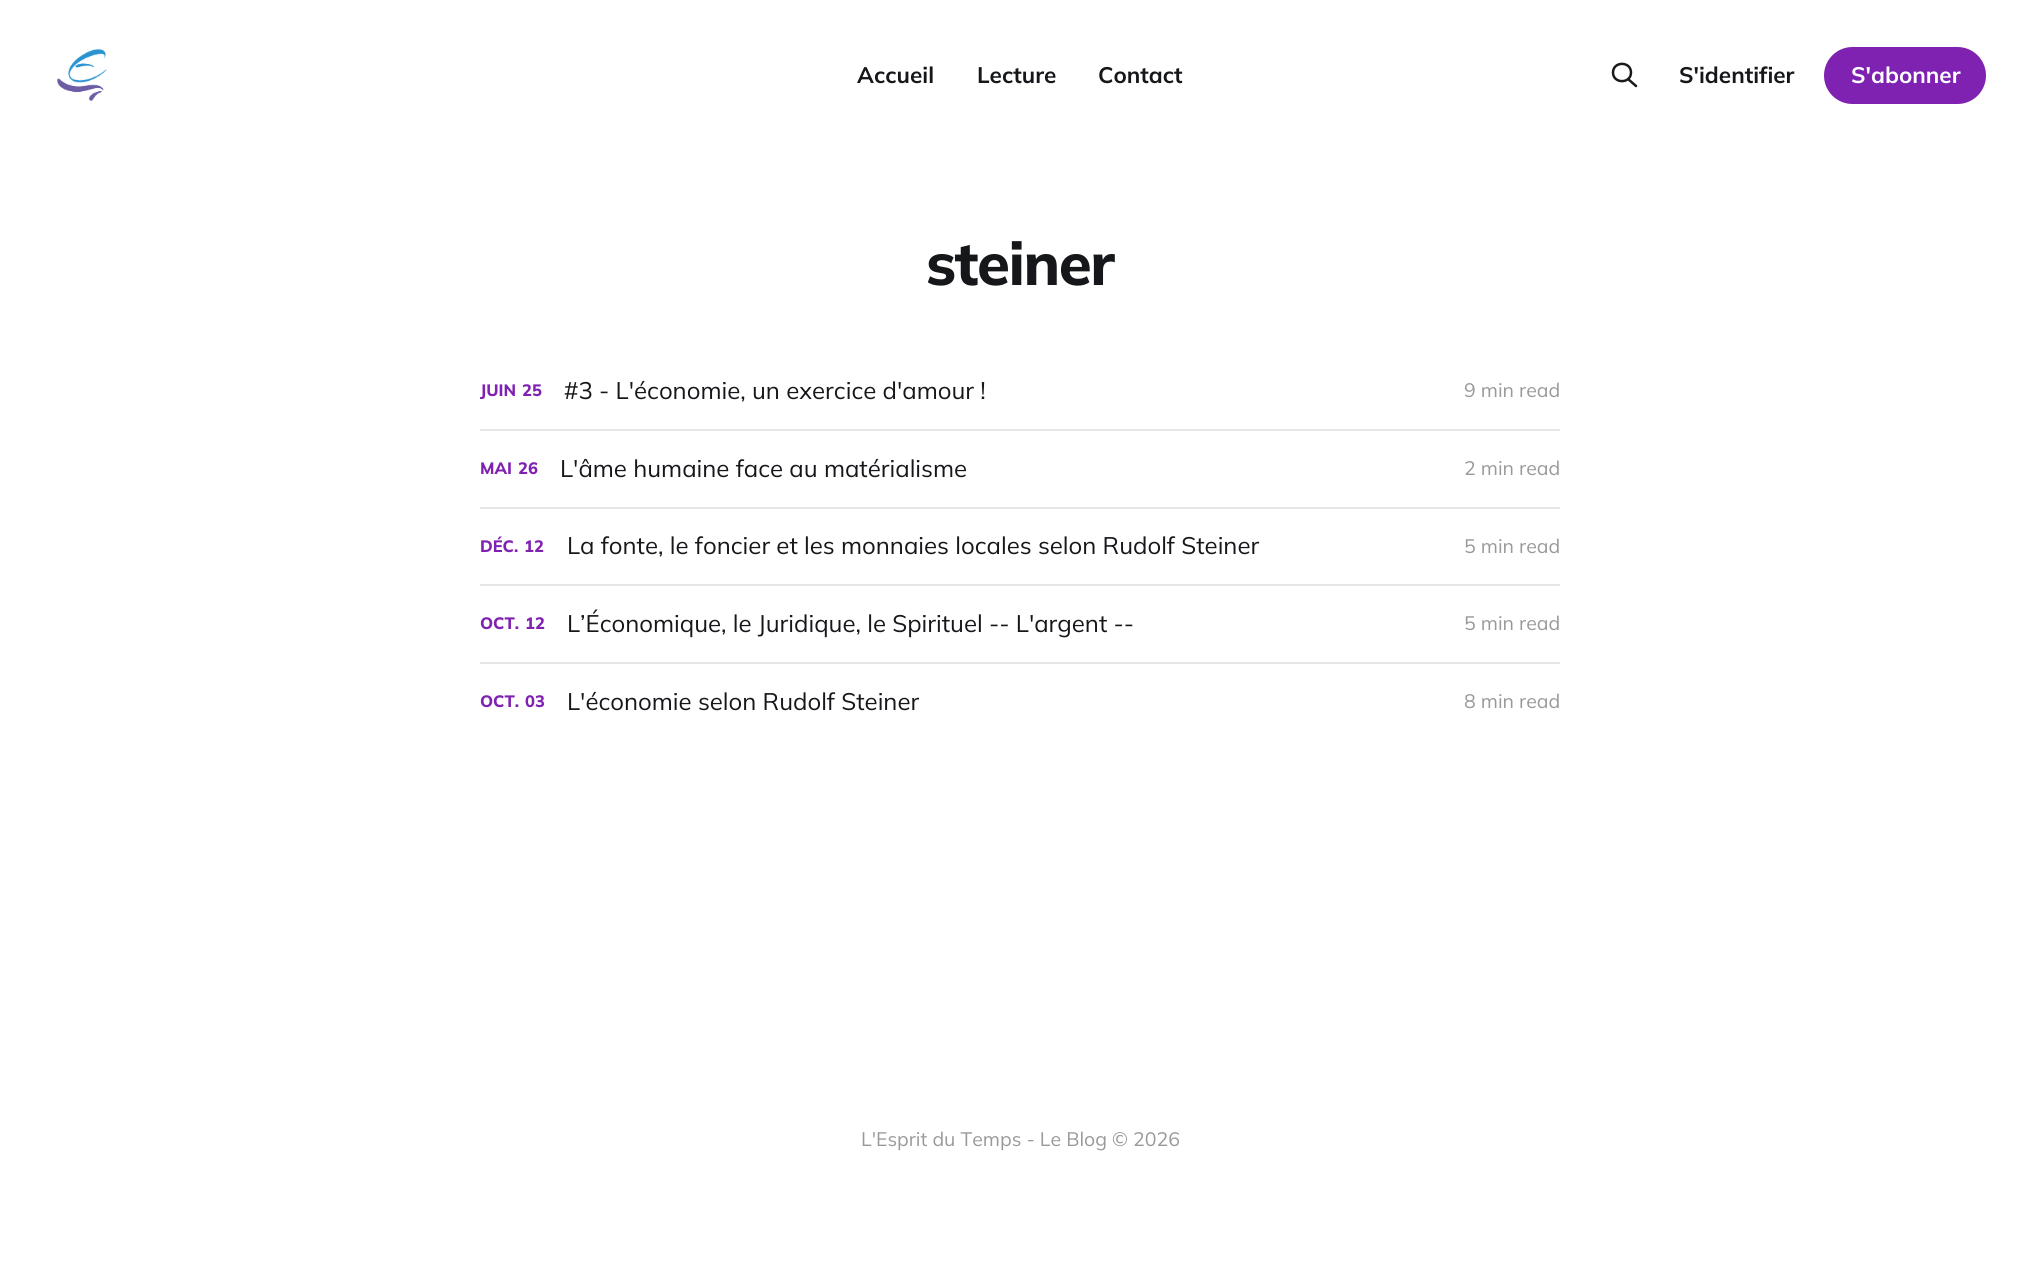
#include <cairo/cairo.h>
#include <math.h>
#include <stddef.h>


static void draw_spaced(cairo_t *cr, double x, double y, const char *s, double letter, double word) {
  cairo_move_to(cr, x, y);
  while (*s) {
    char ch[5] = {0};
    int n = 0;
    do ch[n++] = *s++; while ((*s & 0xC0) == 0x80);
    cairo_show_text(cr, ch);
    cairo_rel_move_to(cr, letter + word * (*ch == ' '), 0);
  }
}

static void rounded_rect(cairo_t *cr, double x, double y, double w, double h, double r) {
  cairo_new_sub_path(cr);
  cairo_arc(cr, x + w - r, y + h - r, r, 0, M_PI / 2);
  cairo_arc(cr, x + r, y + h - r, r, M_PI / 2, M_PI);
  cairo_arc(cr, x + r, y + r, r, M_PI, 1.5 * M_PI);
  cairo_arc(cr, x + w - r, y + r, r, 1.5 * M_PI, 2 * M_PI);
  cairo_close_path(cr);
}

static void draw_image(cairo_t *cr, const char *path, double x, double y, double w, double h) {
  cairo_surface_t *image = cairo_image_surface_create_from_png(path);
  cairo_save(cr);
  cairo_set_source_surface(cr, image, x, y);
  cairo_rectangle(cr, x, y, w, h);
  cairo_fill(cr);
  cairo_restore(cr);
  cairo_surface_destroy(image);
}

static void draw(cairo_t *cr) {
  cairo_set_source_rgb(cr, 1, 1, 1);
  cairo_paint(cr);
  draw_image(cr, "images/1.png", 57, 49, 50, 52);
  cairo_new_path(cr);
  cairo_move_to(cr, 1636, 86);
  cairo_line_to(cr, 1628, 79);
  cairo_move_to(cr, 1631, 72.5);
  cairo_curve_to(cr, 1631, 84, 1613, 84, 1613, 72.5);
  cairo_curve_to(cr, 1613, 61, 1631, 61, 1631, 72.5);
  cairo_close_path(cr);
  cairo_set_source_rgb(cr, 26 / 255.0, 26 / 255.0, 26 / 255.0);
  cairo_set_line_width(cr, 2.5);
  cairo_set_line_cap(cr, CAIRO_LINE_CAP_ROUND);
  cairo_set_line_join(cr, CAIRO_LINE_JOIN_ROUND);
  cairo_stroke(cr);
  cairo_set_source_rgb(cr, 127 / 255.0, 33 / 255.0, 177 / 255.0);
  rounded_rect(cr, 1824, 47, 162, 57, 28.5);
  cairo_fill(cr);
  cairo_set_source_rgb(cr, 230 / 255.0, 230 / 255.0, 230 / 255.0);
  cairo_rectangle(cr, 480, 429, 1080, 2);
  cairo_fill(cr);
  cairo_rectangle(cr, 480, 507, 1080, 2);
  cairo_fill(cr);
  cairo_rectangle(cr, 480, 584, 1080, 2);
  cairo_fill(cr);
  cairo_rectangle(cr, 480, 662, 1080, 2);
  cairo_fill(cr);
  cairo_select_font_face(cr, "Mulish ExtraLight", CAIRO_FONT_SLANT_NORMAL, CAIRO_FONT_WEIGHT_NORMAL);
  cairo_set_font_size(cr, 22.5);
  cairo_set_source_rgb(cr, 21 / 255.0, 23 / 255.0, 26 / 255.0);
  cairo_move_to(cr, 857, 83);
  cairo_show_text(cr, "Accueil");
  cairo_move_to(cr, 977, 83);
  cairo_show_text(cr, "Lecture");
  cairo_move_to(cr, 1098, 83);
  cairo_show_text(cr, "Contact");
  cairo_move_to(cr, 1679, 83);
  cairo_show_text(cr, "S'identifier");
  cairo_set_source_rgb(cr, 1, 1, 1);
  cairo_move_to(cr, 1851, 83);
  cairo_show_text(cr, "S'abonner");
  cairo_select_font_face(cr, "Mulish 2 ExtraLight", CAIRO_FONT_SLANT_NORMAL, CAIRO_FONT_WEIGHT_NORMAL);
  cairo_set_font_size(cr, 60);
  cairo_set_source_rgb(cr, 21 / 255.0, 23 / 255.0, 26 / 255.0);
  draw_spaced(cr, 926, 285, "steiner", -1.5, 0);
  cairo_set_font_size(cr, 16.5);
  cairo_set_source_rgb(cr, 127 / 255.0, 33 / 255.0, 177 / 255.0);
  cairo_move_to(cr, 480, 396);
  cairo_show_text(cr, "JUIN");
  cairo_move_to(cr, 522, 396);
  cairo_show_text(cr, "25");
  cairo_select_font_face(cr, "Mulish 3 ExtraLight", CAIRO_FONT_SLANT_NORMAL, CAIRO_FONT_WEIGHT_NORMAL);
  cairo_set_font_size(cr, 24);
  cairo_set_source_rgb(cr, 21 / 255.0, 23 / 255.0, 26 / 255.0);
  cairo_move_to(cr, 564, 399);
  cairo_show_text(cr, "#3 - L'économie, un exercice d'amour !");
  cairo_set_font_size(cr, 19.5);
  cairo_set_source_rgb(cr, 153 / 255.0, 153 / 255.0, 153 / 255.0);
  cairo_move_to(cr, 1464, 397);
  cairo_show_text(cr, "9 min read");
  cairo_select_font_face(cr, "Mulish 2 ExtraLight", CAIRO_FONT_SLANT_NORMAL, CAIRO_FONT_WEIGHT_NORMAL);
  cairo_set_font_size(cr, 16.5);
  cairo_set_source_rgb(cr, 127 / 255.0, 33 / 255.0, 177 / 255.0);
  cairo_move_to(cr, 480, 474);
  cairo_show_text(cr, "MAI");
  cairo_move_to(cr, 518, 474);
  cairo_show_text(cr, "26");
  cairo_select_font_face(cr, "Mulish 3 ExtraLight", CAIRO_FONT_SLANT_NORMAL, CAIRO_FONT_WEIGHT_NORMAL);
  cairo_set_font_size(cr, 24);
  cairo_set_source_rgb(cr, 21 / 255.0, 23 / 255.0, 26 / 255.0);
  cairo_move_to(cr, 560, 477);
  cairo_show_text(cr, "L'âme humaine face au matérialisme");
  cairo_set_font_size(cr, 19.5);
  cairo_set_source_rgb(cr, 153 / 255.0, 153 / 255.0, 153 / 255.0);
  cairo_move_to(cr, 1464, 475);
  cairo_show_text(cr, "2 min read");
  cairo_select_font_face(cr, "Mulish 2 ExtraLight", CAIRO_FONT_SLANT_NORMAL, CAIRO_FONT_WEIGHT_NORMAL);
  cairo_set_font_size(cr, 16.5);
  cairo_set_source_rgb(cr, 127 / 255.0, 33 / 255.0, 177 / 255.0);
  cairo_move_to(cr, 480, 552);
  cairo_show_text(cr, "DÉC.");
  cairo_move_to(cr, 524, 552);
  cairo_show_text(cr, "12");
  cairo_select_font_face(cr, "Mulish 3 ExtraLight", CAIRO_FONT_SLANT_NORMAL, CAIRO_FONT_WEIGHT_NORMAL);
  cairo_set_font_size(cr, 24);
  cairo_set_source_rgb(cr, 21 / 255.0, 23 / 255.0, 26 / 255.0);
  cairo_move_to(cr, 567, 554);
  cairo_show_text(cr, "La fonte, le foncier et les monnaies locales selon Rudolf Steiner");
  cairo_set_font_size(cr, 19.5);
  cairo_set_source_rgb(cr, 153 / 255.0, 153 / 255.0, 153 / 255.0);
  cairo_move_to(cr, 1464, 553);
  cairo_show_text(cr, "5 min read");
  cairo_select_font_face(cr, "Mulish 2 ExtraLight", CAIRO_FONT_SLANT_NORMAL, CAIRO_FONT_WEIGHT_NORMAL);
  cairo_set_font_size(cr, 16.5);
  cairo_set_source_rgb(cr, 127 / 255.0, 33 / 255.0, 177 / 255.0);
  cairo_move_to(cr, 480, 629);
  cairo_show_text(cr, "OCT.");
  cairo_move_to(cr, 525, 629);
  cairo_show_text(cr, "12");
  cairo_select_font_face(cr, "Mulish 3 ExtraLight", CAIRO_FONT_SLANT_NORMAL, CAIRO_FONT_WEIGHT_NORMAL);
  cairo_set_font_size(cr, 24);
  cairo_set_source_rgb(cr, 21 / 255.0, 23 / 255.0, 26 / 255.0);
  cairo_move_to(cr, 567, 632);
  cairo_show_text(cr, "L’Économique, le Juridique, le Spirituel -- L'argent --");
  cairo_set_font_size(cr, 19.5);
  cairo_set_source_rgb(cr, 153 / 255.0, 153 / 255.0, 153 / 255.0);
  cairo_move_to(cr, 1464, 630);
  cairo_show_text(cr, "5 min read");
  cairo_select_font_face(cr, "Mulish 2 ExtraLight", CAIRO_FONT_SLANT_NORMAL, CAIRO_FONT_WEIGHT_NORMAL);
  cairo_set_font_size(cr, 16.5);
  cairo_set_source_rgb(cr, 127 / 255.0, 33 / 255.0, 177 / 255.0);
  cairo_move_to(cr, 480, 707);
  cairo_show_text(cr, "OCT.");
  cairo_move_to(cr, 525, 707);
  cairo_show_text(cr, "03");
  cairo_select_font_face(cr, "Mulish 3 ExtraLight", CAIRO_FONT_SLANT_NORMAL, CAIRO_FONT_WEIGHT_NORMAL);
  cairo_set_font_size(cr, 24);
  cairo_set_source_rgb(cr, 21 / 255.0, 23 / 255.0, 26 / 255.0);
  cairo_move_to(cr, 567, 710);
  cairo_show_text(cr, "L'économie selon Rudolf Steiner");
  cairo_set_font_size(cr, 19.5);
  cairo_set_source_rgb(cr, 153 / 255.0, 153 / 255.0, 153 / 255.0);
  cairo_move_to(cr, 1464, 708);
  cairo_show_text(cr, "8 min read");
  cairo_move_to(cr, 861, 1146);
  cairo_show_text(cr, "L'Esprit du Temps - Le Blog © 2026");
}

int main(void) {
  cairo_surface_t *surface = cairo_image_surface_create(CAIRO_FORMAT_RGB24, 2040, 1275);
  cairo_t *cr = cairo_create(surface);
  cairo_font_options_t *options = cairo_font_options_create();
  cairo_font_options_set_hint_metrics(options, CAIRO_HINT_METRICS_OFF);
  cairo_font_options_set_hint_style(options, CAIRO_HINT_STYLE_NONE);
  cairo_set_font_options(cr, options);
  cairo_set_miter_limit(cr, 4);
  draw(cr);
  cairo_surface_write_to_png(surface, "out.png");
  cairo_font_options_destroy(options);
  cairo_destroy(cr);
  cairo_surface_destroy(surface);
  return 0;
}
